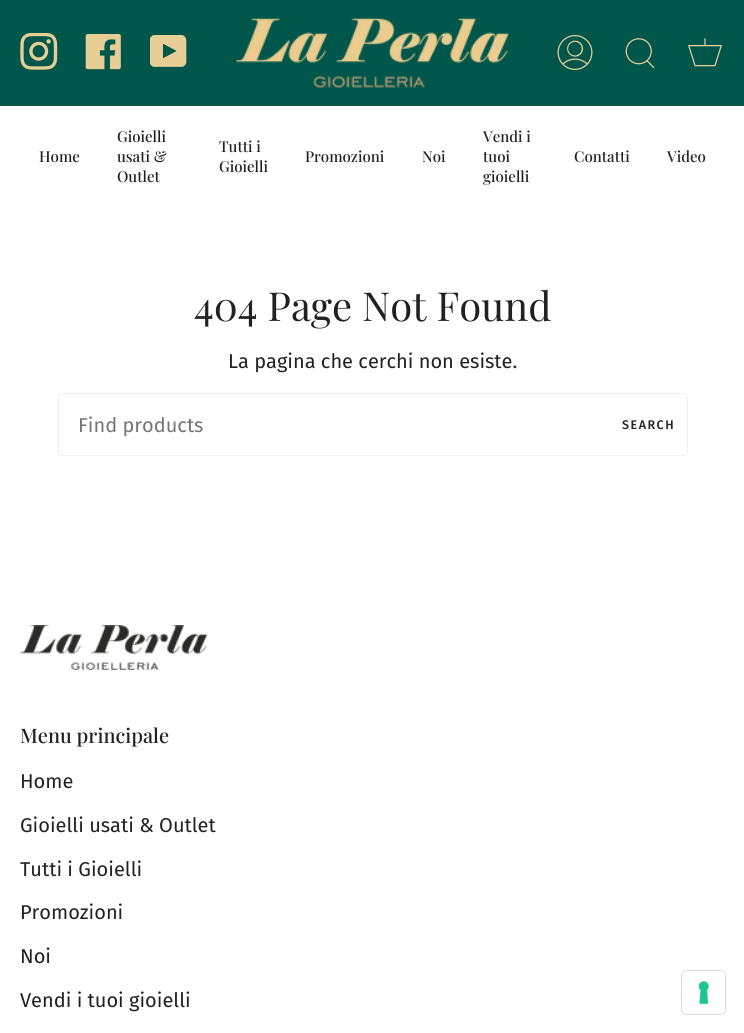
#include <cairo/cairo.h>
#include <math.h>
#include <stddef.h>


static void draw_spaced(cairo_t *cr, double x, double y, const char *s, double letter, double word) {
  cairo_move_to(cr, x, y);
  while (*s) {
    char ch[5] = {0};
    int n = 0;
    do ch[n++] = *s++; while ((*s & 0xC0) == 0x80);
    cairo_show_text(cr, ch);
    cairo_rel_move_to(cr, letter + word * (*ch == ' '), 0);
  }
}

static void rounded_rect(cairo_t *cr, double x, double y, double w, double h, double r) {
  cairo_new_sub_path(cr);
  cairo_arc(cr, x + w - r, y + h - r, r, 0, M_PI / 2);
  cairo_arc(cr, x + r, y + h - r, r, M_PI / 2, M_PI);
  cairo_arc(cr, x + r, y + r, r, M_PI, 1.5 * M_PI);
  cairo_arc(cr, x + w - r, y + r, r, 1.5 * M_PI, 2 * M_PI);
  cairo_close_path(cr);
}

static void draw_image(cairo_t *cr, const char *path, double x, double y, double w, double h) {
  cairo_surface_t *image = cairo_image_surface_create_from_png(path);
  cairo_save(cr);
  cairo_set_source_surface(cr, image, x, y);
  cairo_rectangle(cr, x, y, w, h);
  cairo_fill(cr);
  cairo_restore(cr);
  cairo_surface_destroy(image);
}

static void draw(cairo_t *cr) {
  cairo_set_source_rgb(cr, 1, 1, 1);
  cairo_paint(cr);
  cairo_set_source_rgb(cr, 0, 86 / 255.0, 75 / 255.0);
  cairo_rectangle(cr, 0, 0, 744, 106);
  cairo_fill(cr);
  draw_image(cr, "images/1.png", 20, 33, 38, 37);
  draw_image(cr, "images/2.png", 85, 34, 36, 36);
  draw_image(cr, "images/3.png", 150, 35, 37, 32);
  draw_image(cr, "images/4.png", 236, 18, 273, 70);
  draw_image(cr, "images/5.png", 557, 35, 36, 35);
  draw_image(cr, "images/6.png", 625, 38, 30, 31);
  draw_image(cr, "images/7.png", 688, 38, 34, 29);
  rounded_rect(cr, 58.5, 393.5, 629, 62, 3.5);
  cairo_set_source_rgb(cr, 240 / 255.0, 240 / 255.0, 240 / 255.0);
  cairo_set_line_width(cr, 1);
  cairo_stroke(cr);
  draw_image(cr, "images/8.png", 20, 625, 188, 45);
  rounded_rect(cr, 681.5, 970.5, 44, 44, 5.5);
  cairo_set_source_rgb(cr, 217 / 255.0, 217 / 255.0, 217 / 255.0);
  cairo_stroke(cr);
  cairo_set_source_rgb(cr, 1, 1, 1);
  rounded_rect(cr, 683, 971, 42, 43, 5);
  cairo_fill(cr);
  draw_image(cr, "images/9.png", 698, 981, 11, 23);
  cairo_select_font_face(cr, "Playfair Display Medium", CAIRO_FONT_SLANT_NORMAL, CAIRO_FONT_WEIGHT_NORMAL);
  cairo_set_font_size(cr, 15);
  cairo_set_source_rgb(cr, 33 / 255.0, 33 / 255.0, 33 / 255.0);
  cairo_move_to(cr, 39, 162);
  cairo_show_text(cr, "Home");
  cairo_move_to(cr, 117, 142);
  cairo_show_text(cr, "Gioielli");
  cairo_move_to(cr, 117, 162);
  cairo_show_text(cr, "usati &");
  cairo_move_to(cr, 117, 182);
  cairo_show_text(cr, "Outlet");
  cairo_move_to(cr, 219, 152);
  cairo_show_text(cr, "Tutti i");
  cairo_move_to(cr, 219, 172);
  cairo_show_text(cr, "Gioielli");
  cairo_move_to(cr, 305, 162);
  cairo_show_text(cr, "Promozioni");
  cairo_move_to(cr, 422, 162);
  cairo_show_text(cr, "Noi");
  cairo_move_to(cr, 483, 142);
  cairo_show_text(cr, "Vendi i");
  cairo_move_to(cr, 483, 162);
  cairo_show_text(cr, "tuoi");
  cairo_move_to(cr, 483, 182);
  cairo_show_text(cr, "gioielli");
  cairo_move_to(cr, 574, 162);
  cairo_show_text(cr, "Contatti");
  cairo_move_to(cr, 667, 162);
  cairo_show_text(cr, "Video");
  cairo_select_font_face(cr, "Playfair Display", CAIRO_FONT_SLANT_NORMAL, CAIRO_FONT_WEIGHT_NORMAL);
  cairo_set_font_size(cr, 40);
  cairo_move_to(cr, 194, 321);
  cairo_show_text(cr, "404 Page Not Found");
  cairo_select_font_face(cr, "Fira Sans", CAIRO_FONT_SLANT_NORMAL, CAIRO_FONT_WEIGHT_NORMAL);
  cairo_set_font_size(cr, 20);
  cairo_move_to(cr, 228, 368);
  cairo_show_text(cr, "La pagina che cerchi non esiste.");
  cairo_set_source_rgb(cr, 117 / 255.0, 117 / 255.0, 117 / 255.0);
  cairo_move_to(cr, 78, 432);
  cairo_show_text(cr, "Find products");
  cairo_select_font_face(cr, "Fira Sans Medium", CAIRO_FONT_SLANT_NORMAL, CAIRO_FONT_WEIGHT_NORMAL);
  cairo_set_font_size(cr, 12.5);
  cairo_set_source_rgb(cr, 33 / 255.0, 33 / 255.0, 33 / 255.0);
  draw_spaced(cr, 622, 429, "SEARCH", 1.5, 0);
  cairo_select_font_face(cr, "Playfair Display Medium", CAIRO_FONT_SLANT_NORMAL, CAIRO_FONT_WEIGHT_NORMAL);
  cairo_set_font_size(cr, 20);
  cairo_move_to(cr, 20, 743);
  cairo_show_text(cr, "Menu principale");
  cairo_select_font_face(cr, "Fira Sans", CAIRO_FONT_SLANT_NORMAL, CAIRO_FONT_WEIGHT_NORMAL);
  cairo_move_to(cr, 20, 788);
  cairo_show_text(cr, "Home");
  cairo_move_to(cr, 20, 832);
  cairo_show_text(cr, "Gioielli usati & Outlet");
  cairo_move_to(cr, 20, 876);
  cairo_show_text(cr, "Tutti i Gioielli");
  cairo_move_to(cr, 20, 919);
  cairo_show_text(cr, "Promozioni");
  cairo_move_to(cr, 20, 963);
  cairo_show_text(cr, "Noi");
  cairo_move_to(cr, 20, 1007);
  cairo_show_text(cr, "Vendi i tuoi gioielli");
}

int main(void) {
  cairo_surface_t *surface = cairo_image_surface_create(CAIRO_FORMAT_RGB24, 744, 1033);
  cairo_t *cr = cairo_create(surface);
  cairo_font_options_t *options = cairo_font_options_create();
  cairo_font_options_set_hint_metrics(options, CAIRO_HINT_METRICS_OFF);
  cairo_font_options_set_hint_style(options, CAIRO_HINT_STYLE_NONE);
  cairo_set_font_options(cr, options);
  cairo_set_miter_limit(cr, 4);
  draw(cr);
  cairo_surface_write_to_png(surface, "out.png");
  cairo_font_options_destroy(options);
  cairo_destroy(cr);
  cairo_surface_destroy(surface);
  return 0;
}
